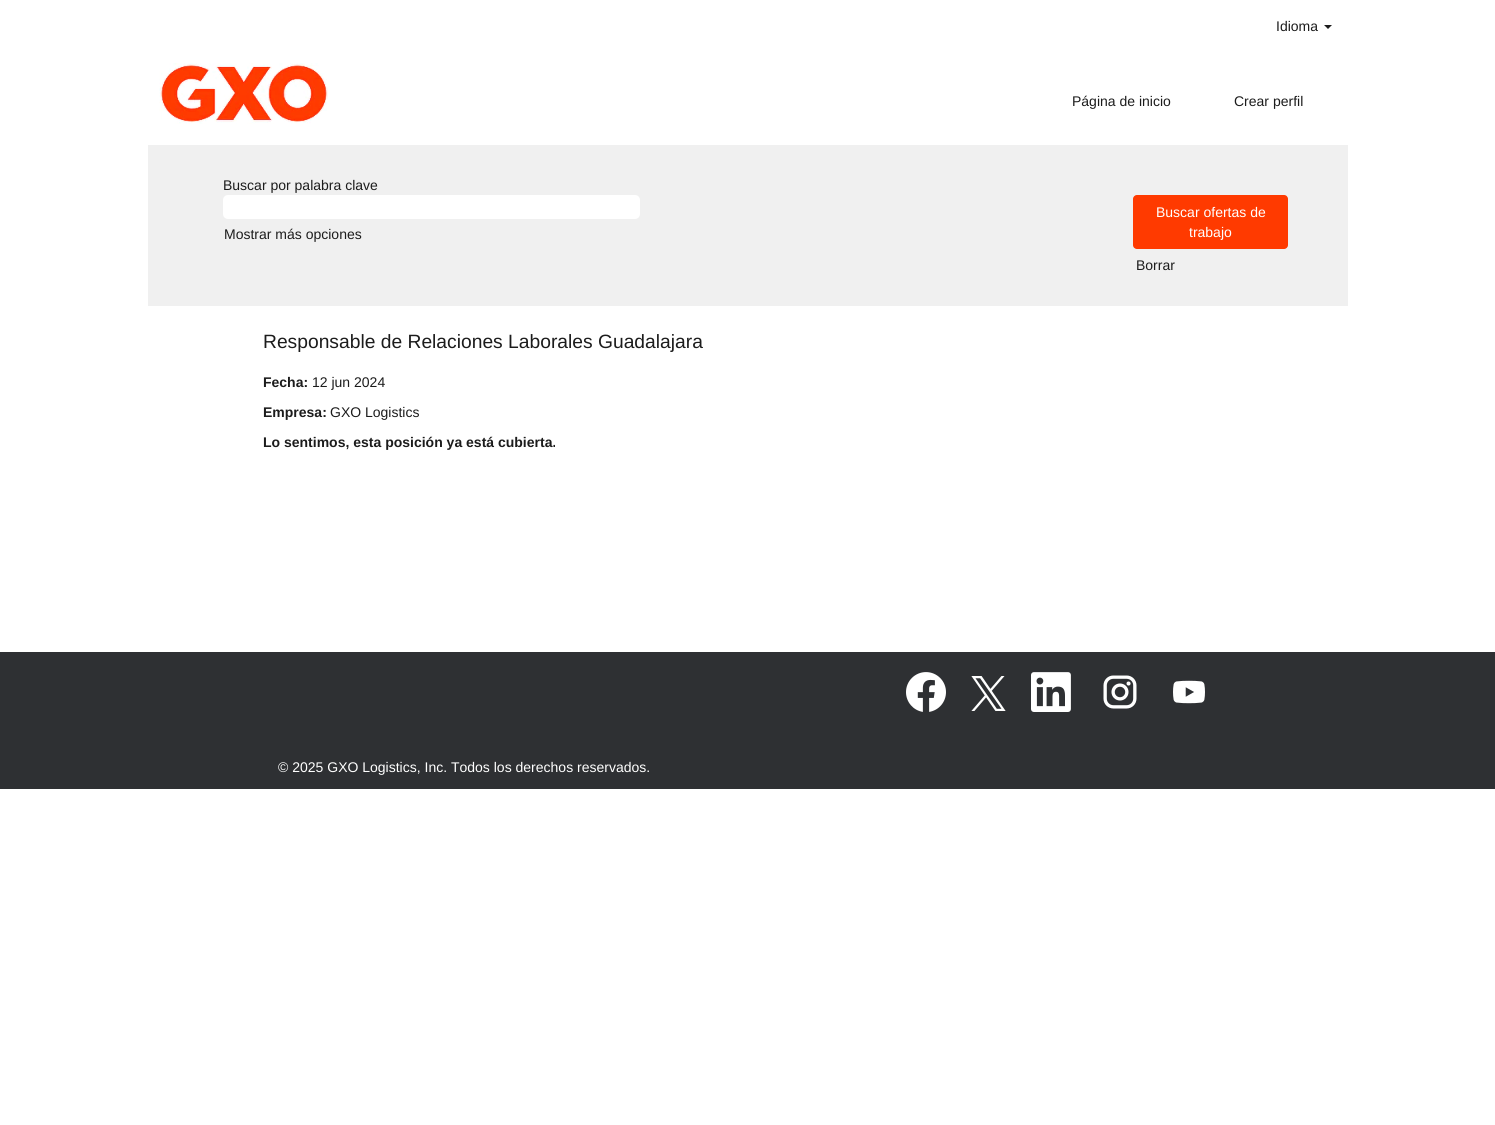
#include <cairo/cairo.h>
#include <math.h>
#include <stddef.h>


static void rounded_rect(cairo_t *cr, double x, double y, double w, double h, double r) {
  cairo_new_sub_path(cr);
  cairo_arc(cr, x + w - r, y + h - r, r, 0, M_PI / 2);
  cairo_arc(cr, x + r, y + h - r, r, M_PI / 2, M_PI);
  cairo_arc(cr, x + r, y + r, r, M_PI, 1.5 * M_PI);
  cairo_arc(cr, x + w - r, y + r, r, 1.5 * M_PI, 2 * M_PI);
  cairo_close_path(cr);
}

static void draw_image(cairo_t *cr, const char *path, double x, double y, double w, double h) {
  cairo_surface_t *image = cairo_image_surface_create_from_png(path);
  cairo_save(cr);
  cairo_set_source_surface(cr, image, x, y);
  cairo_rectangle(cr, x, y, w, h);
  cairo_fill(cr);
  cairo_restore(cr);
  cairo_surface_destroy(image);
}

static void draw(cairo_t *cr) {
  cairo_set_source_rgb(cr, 1, 1, 1);
  cairo_paint(cr);
  cairo_set_source_rgb(cr, 28 / 255.0, 28 / 255.0, 28 / 255.0);
  cairo_new_path(cr);
  cairo_move_to(cr, 1324, 25);
  cairo_line_to(cr, 1332, 25);
  cairo_line_to(cr, 1328, 29);
  cairo_close_path(cr);
  cairo_fill(cr);
  draw_image(cr, "images/1.png", 159, 63, 169, 61);
  cairo_set_source_rgb(cr, 240 / 255.0, 240 / 255.0, 240 / 255.0);
  cairo_rectangle(cr, 148, 145, 1200, 161);
  cairo_fill(cr);
  cairo_set_source_rgb(cr, 1, 1, 1);
  rounded_rect(cr, 223, 195, 417, 24, 5);
  cairo_fill(cr);
  cairo_set_source_rgb(cr, 1, 58 / 255.0, 0);
  rounded_rect(cr, 1133, 195, 155, 54, 4);
  cairo_fill(cr);
  cairo_set_source_rgb(cr, 46 / 255.0, 48 / 255.0, 51 / 255.0);
  cairo_rectangle(cr, 0, 652, 1495, 137);
  cairo_fill(cr);
  draw_image(cr, "images/2.png", 906, 672, 40, 40);
  draw_image(cr, "images/3.png", 971, 676, 35, 35);
  draw_image(cr, "images/4.png", 1031, 672, 40, 40);
  draw_image(cr, "images/5.png", 1103, 675, 34, 34);
  draw_image(cr, "images/6.png", 1173, 680, 32, 24);
  cairo_select_font_face(cr, "Liberation Sans", CAIRO_FONT_SLANT_NORMAL, CAIRO_FONT_WEIGHT_NORMAL);
  cairo_set_font_size(cr, 14);
  cairo_set_source_rgb(cr, 28 / 255.0, 28 / 255.0, 28 / 255.0);
  cairo_move_to(cr, 1276, 31);
  cairo_show_text(cr, "Idioma");
  cairo_move_to(cr, 1072, 106);
  cairo_show_text(cr, "Página de inicio");
  cairo_move_to(cr, 1234, 106);
  cairo_show_text(cr, "Crear perfil");
  cairo_move_to(cr, 223, 190);
  cairo_show_text(cr, "Buscar por palabra clave");
  cairo_move_to(cr, 224, 239);
  cairo_show_text(cr, "Mostrar más opciones");
  cairo_set_source_rgb(cr, 1, 1, 1);
  cairo_move_to(cr, 1156, 217);
  cairo_show_text(cr, "Buscar ofertas de");
  cairo_move_to(cr, 1189, 237);
  cairo_show_text(cr, "trabajo");
  cairo_set_source_rgb(cr, 28 / 255.0, 28 / 255.0, 28 / 255.0);
  cairo_move_to(cr, 1136, 270);
  cairo_show_text(cr, "Borrar");
  cairo_set_font_size(cr, 19.25);
  cairo_move_to(cr, 263, 348);
  cairo_show_text(cr, "Responsable de Relaciones Laborales Guadalajara");
  cairo_select_font_face(cr, "Liberation Sans", CAIRO_FONT_SLANT_NORMAL, CAIRO_FONT_WEIGHT_BOLD);
  cairo_set_font_size(cr, 14);
  cairo_move_to(cr, 263, 387);
  cairo_show_text(cr, "Fecha:");
  cairo_select_font_face(cr, "Liberation Sans", CAIRO_FONT_SLANT_NORMAL, CAIRO_FONT_WEIGHT_NORMAL);
  cairo_move_to(cr, 312, 387);
  cairo_show_text(cr, "12 jun 2024");
  cairo_select_font_face(cr, "Liberation Sans", CAIRO_FONT_SLANT_NORMAL, CAIRO_FONT_WEIGHT_BOLD);
  cairo_move_to(cr, 263, 417);
  cairo_show_text(cr, "Empresa:");
  cairo_select_font_face(cr, "Liberation Sans", CAIRO_FONT_SLANT_NORMAL, CAIRO_FONT_WEIGHT_NORMAL);
  cairo_move_to(cr, 330, 417);
  cairo_show_text(cr, "GXO Logistics");
  cairo_select_font_face(cr, "Liberation Sans", CAIRO_FONT_SLANT_NORMAL, CAIRO_FONT_WEIGHT_BOLD);
  cairo_move_to(cr, 263, 447);
  cairo_show_text(cr, "Lo sentimos, esta posición ya está cubierta.");
  cairo_select_font_face(cr, "Liberation Sans", CAIRO_FONT_SLANT_NORMAL, CAIRO_FONT_WEIGHT_NORMAL);
  cairo_set_source_rgb(cr, 1, 1, 1);
  cairo_move_to(cr, 278, 772);
  cairo_show_text(cr, "© 2025 GXO Logistics, Inc. Todos los derechos reservados.");
}

int main(void) {
  cairo_surface_t *surface = cairo_image_surface_create(CAIRO_FORMAT_RGB24, 1495, 1125);
  cairo_t *cr = cairo_create(surface);
  cairo_font_options_t *options = cairo_font_options_create();
  cairo_font_options_set_hint_metrics(options, CAIRO_HINT_METRICS_OFF);
  cairo_font_options_set_hint_style(options, CAIRO_HINT_STYLE_NONE);
  cairo_set_font_options(cr, options);
  cairo_set_miter_limit(cr, 4);
  draw(cr);
  cairo_surface_write_to_png(surface, "out.png");
  cairo_font_options_destroy(options);
  cairo_destroy(cr);
  cairo_surface_destroy(surface);
  return 0;
}
